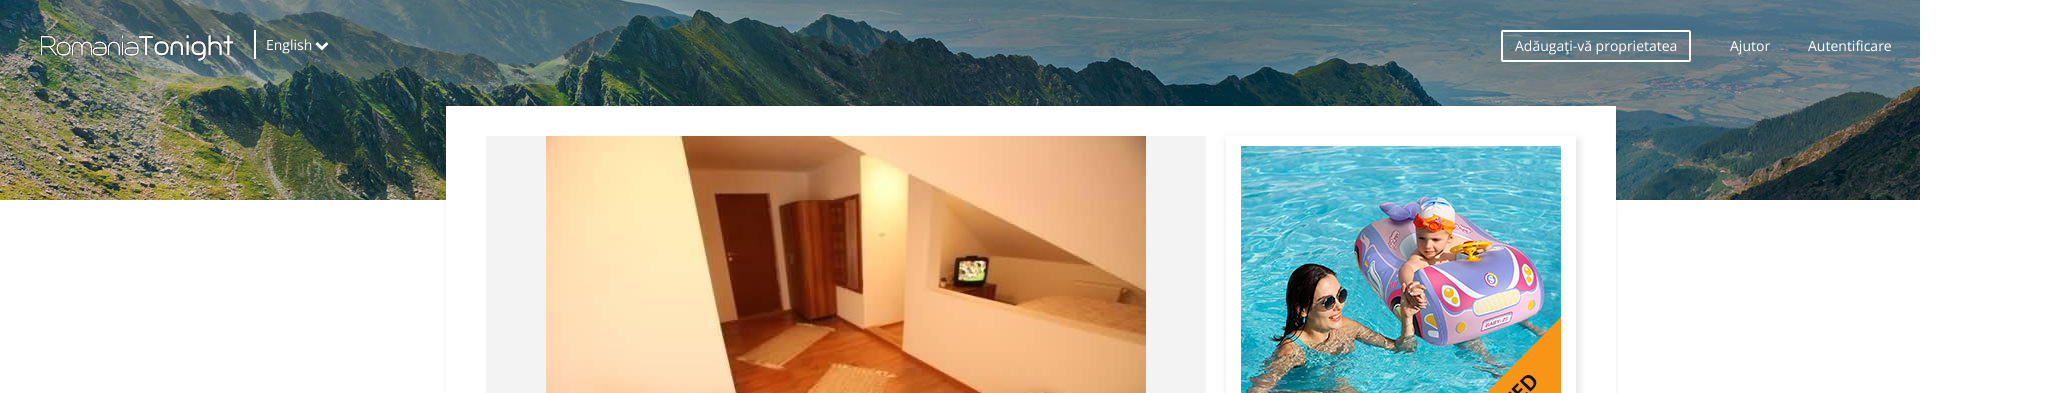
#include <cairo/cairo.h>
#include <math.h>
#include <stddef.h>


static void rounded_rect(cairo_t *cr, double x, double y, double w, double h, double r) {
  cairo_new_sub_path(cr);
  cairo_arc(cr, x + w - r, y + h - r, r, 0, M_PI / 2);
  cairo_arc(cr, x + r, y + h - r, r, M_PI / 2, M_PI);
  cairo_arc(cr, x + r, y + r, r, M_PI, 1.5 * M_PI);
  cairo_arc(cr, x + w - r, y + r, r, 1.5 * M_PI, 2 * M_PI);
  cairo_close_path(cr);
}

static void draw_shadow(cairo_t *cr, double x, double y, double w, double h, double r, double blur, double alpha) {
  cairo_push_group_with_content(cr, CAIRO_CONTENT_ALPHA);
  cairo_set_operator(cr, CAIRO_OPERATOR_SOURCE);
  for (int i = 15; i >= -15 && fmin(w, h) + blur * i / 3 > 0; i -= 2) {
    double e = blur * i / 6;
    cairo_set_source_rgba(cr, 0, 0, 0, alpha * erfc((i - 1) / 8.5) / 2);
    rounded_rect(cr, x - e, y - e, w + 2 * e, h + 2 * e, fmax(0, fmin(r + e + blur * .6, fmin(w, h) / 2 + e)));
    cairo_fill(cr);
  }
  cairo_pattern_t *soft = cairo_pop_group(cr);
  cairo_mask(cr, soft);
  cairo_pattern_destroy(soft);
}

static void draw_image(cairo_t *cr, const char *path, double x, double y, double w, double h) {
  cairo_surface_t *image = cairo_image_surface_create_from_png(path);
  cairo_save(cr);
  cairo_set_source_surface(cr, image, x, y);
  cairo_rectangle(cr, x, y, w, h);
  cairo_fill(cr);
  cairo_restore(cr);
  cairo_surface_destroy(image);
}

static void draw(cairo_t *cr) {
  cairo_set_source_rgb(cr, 1, 1, 1);
  cairo_paint(cr);
  draw_image(cr, "images/1.png", 0, 0, 1920, 200);
  draw_image(cr, "images/2.png", 40, 34, 194, 28);
  cairo_set_source_rgb(cr, 1, 1, 1);
  cairo_rectangle(cr, 254, 30, 2, 29);
  cairo_fill(cr);
  draw_image(cr, "images/3.png", 315, 42, 14, 9);
  rounded_rect(cr, 1502, 31, 188, 30, 1);
  cairo_stroke(cr);
  cairo_set_source_rgb(cr, 0, 0, 0);
  draw_shadow(cr, 446, 106, 1170, 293, 0, 2, 0.1);
  cairo_set_source_rgb(cr, 1, 1, 1);
  cairo_rectangle(cr, 446, 106, 1170, 287);
  cairo_fill(cr);
  cairo_set_source_rgb(cr, 243 / 255.0, 243 / 255.0, 243 / 255.0);
  cairo_rectangle(cr, 486, 136, 720, 257);
  cairo_fill(cr);
  draw_image(cr, "images/4.png", 546, 136, 600, 257);
  cairo_save(cr);
  cairo_set_fill_rule(cr, CAIRO_FILL_RULE_EVEN_ODD);
  cairo_new_path(cr);
  cairo_move_to(cr, 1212, 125);
  cairo_line_to(cr, 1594, 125);
  cairo_line_to(cr, 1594, 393);
  cairo_line_to(cr, 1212, 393);
  cairo_close_path(cr);
  cairo_move_to(cr, 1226, 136);
  cairo_line_to(cr, 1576, 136);
  cairo_line_to(cr, 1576, 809);
  cairo_line_to(cr, 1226, 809);
  cairo_close_path(cr);
  cairo_clip(cr);
  cairo_set_source_rgb(cr, 221 / 255.0, 221 / 255.0, 221 / 255.0);
  draw_shadow(cr, 1228, 141, 350, 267, 0, 5, 1);
  cairo_restore(cr);
  draw_image(cr, "images/5.png", 1241, 146, 320, 247);
  cairo_select_font_face(cr, "Open Sans", CAIRO_FONT_SLANT_NORMAL, CAIRO_FONT_WEIGHT_NORMAL);
  cairo_set_font_size(cr, 14);
  cairo_set_source_rgb(cr, 1, 1, 1);
  cairo_move_to(cr, 266, 50);
  cairo_show_text(cr, "English");
  cairo_move_to(cr, 1515, 51);
  cairo_show_text(cr, "Adăugaţi-vă proprietatea");
  cairo_move_to(cr, 1730, 51);
  cairo_show_text(cr, "Ajutor");
  cairo_move_to(cr, 1808, 51);
  cairo_show_text(cr, "Autentificare");
}

int main(void) {
  cairo_surface_t *surface = cairo_image_surface_create(CAIRO_FORMAT_RGB24, 2061, 393);
  cairo_t *cr = cairo_create(surface);
  cairo_font_options_t *options = cairo_font_options_create();
  cairo_font_options_set_hint_metrics(options, CAIRO_HINT_METRICS_OFF);
  cairo_font_options_set_hint_style(options, CAIRO_HINT_STYLE_NONE);
  cairo_set_font_options(cr, options);
  cairo_set_miter_limit(cr, 4);
  draw(cr);
  cairo_surface_write_to_png(surface, "out.png");
  cairo_font_options_destroy(options);
  cairo_destroy(cr);
  cairo_surface_destroy(surface);
  return 0;
}
